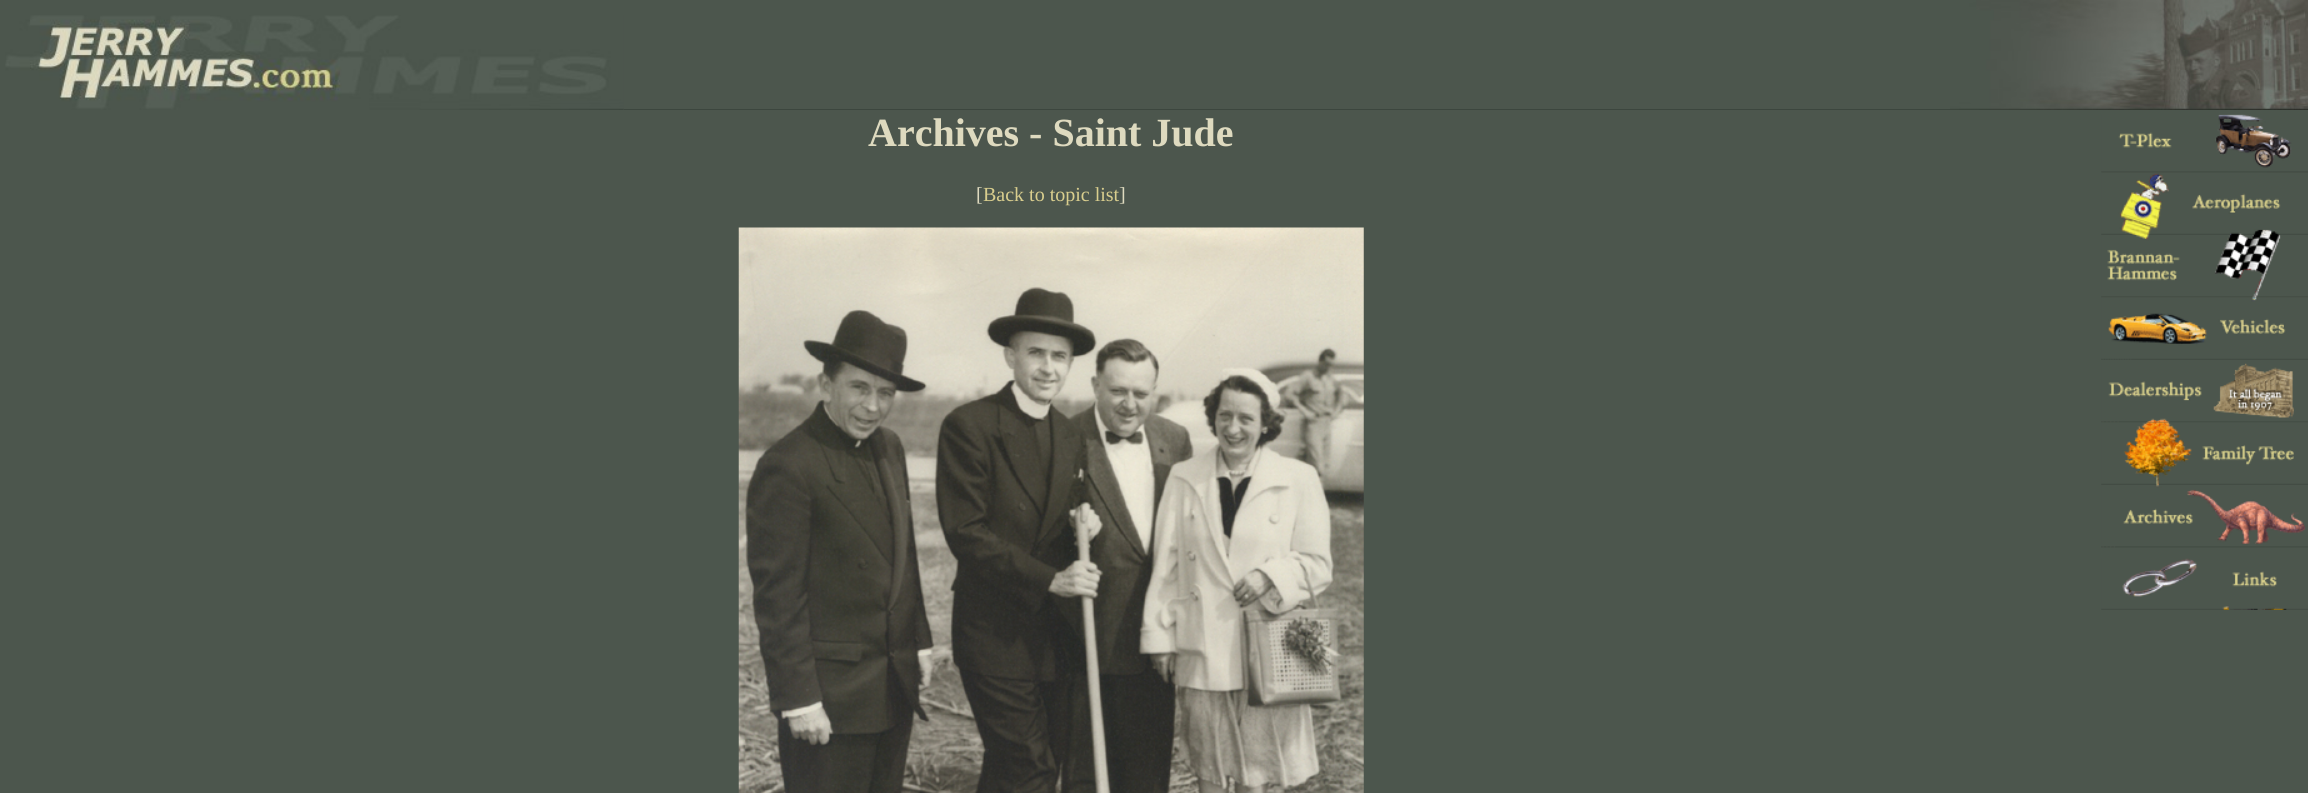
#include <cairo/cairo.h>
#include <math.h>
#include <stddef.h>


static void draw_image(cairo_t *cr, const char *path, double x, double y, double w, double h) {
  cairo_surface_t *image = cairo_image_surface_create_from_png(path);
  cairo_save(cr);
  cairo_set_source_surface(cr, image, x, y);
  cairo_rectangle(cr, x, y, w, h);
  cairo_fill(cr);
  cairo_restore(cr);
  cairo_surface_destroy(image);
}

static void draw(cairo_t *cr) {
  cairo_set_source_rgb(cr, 76 / 255.0, 86 / 255.0, 77 / 255.0);
  cairo_paint(cr);
  draw_image(cr, "images/1.png", 5, 15, 619, 95);
  cairo_set_source_rgb(cr, 60 / 255.0, 70 / 255.0, 62 / 255.0);
  cairo_rectangle(cr, 624, 109, 1326, 1);
  cairo_fill(cr);
  draw_image(cr, "images/2.png", 1950, 0, 358, 110);
  draw_image(cr, "images/3.png", 738, 227, 626, 566);
  draw_image(cr, "images/4.png", 2101, 114, 207, 59);
  draw_image(cr, "images/5.png", 2101, 173, 207, 62);
  draw_image(cr, "images/6.png", 2101, 235, 207, 63);
  draw_image(cr, "images/7.png", 2101, 297, 207, 63);
  draw_image(cr, "images/8.png", 2101, 363, 207, 60);
  draw_image(cr, "images/9.png", 2101, 422, 207, 63);
  draw_image(cr, "images/10.png", 2101, 485, 207, 63);
  draw_image(cr, "images/11.png", 2101, 558, 207, 52);
  cairo_select_font_face(cr, "Liberation Serif", CAIRO_FONT_SLANT_NORMAL, CAIRO_FONT_WEIGHT_BOLD);
  cairo_set_font_size(cr, 40);
  cairo_set_source_rgb(cr, 222 / 255.0, 218 / 255.0, 191 / 255.0);
  cairo_move_to(cr, 868, 146);
  cairo_show_text(cr, "Archives - Saint Jude");
  cairo_select_font_face(cr, "Liberation Serif", CAIRO_FONT_SLANT_NORMAL, CAIRO_FONT_WEIGHT_NORMAL);
  cairo_set_font_size(cr, 20);
  cairo_move_to(cr, 976, 201);
  cairo_show_text(cr, "[");
  cairo_set_source_rgb(cr, 217 / 255.0, 206 / 255.0, 142 / 255.0);
  cairo_move_to(cr, 983, 201);
  cairo_show_text(cr, "Back to topic list");
  cairo_set_source_rgb(cr, 222 / 255.0, 218 / 255.0, 191 / 255.0);
  cairo_move_to(cr, 1119, 201);
  cairo_show_text(cr, "]");
}

int main(void) {
  cairo_surface_t *surface = cairo_image_surface_create(CAIRO_FORMAT_RGB24, 2308, 793);
  cairo_t *cr = cairo_create(surface);
  cairo_font_options_t *options = cairo_font_options_create();
  cairo_font_options_set_hint_metrics(options, CAIRO_HINT_METRICS_OFF);
  cairo_font_options_set_hint_style(options, CAIRO_HINT_STYLE_NONE);
  cairo_set_font_options(cr, options);
  cairo_set_miter_limit(cr, 4);
  draw(cr);
  cairo_surface_write_to_png(surface, "out.png");
  cairo_font_options_destroy(options);
  cairo_destroy(cr);
  cairo_surface_destroy(surface);
  return 0;
}
